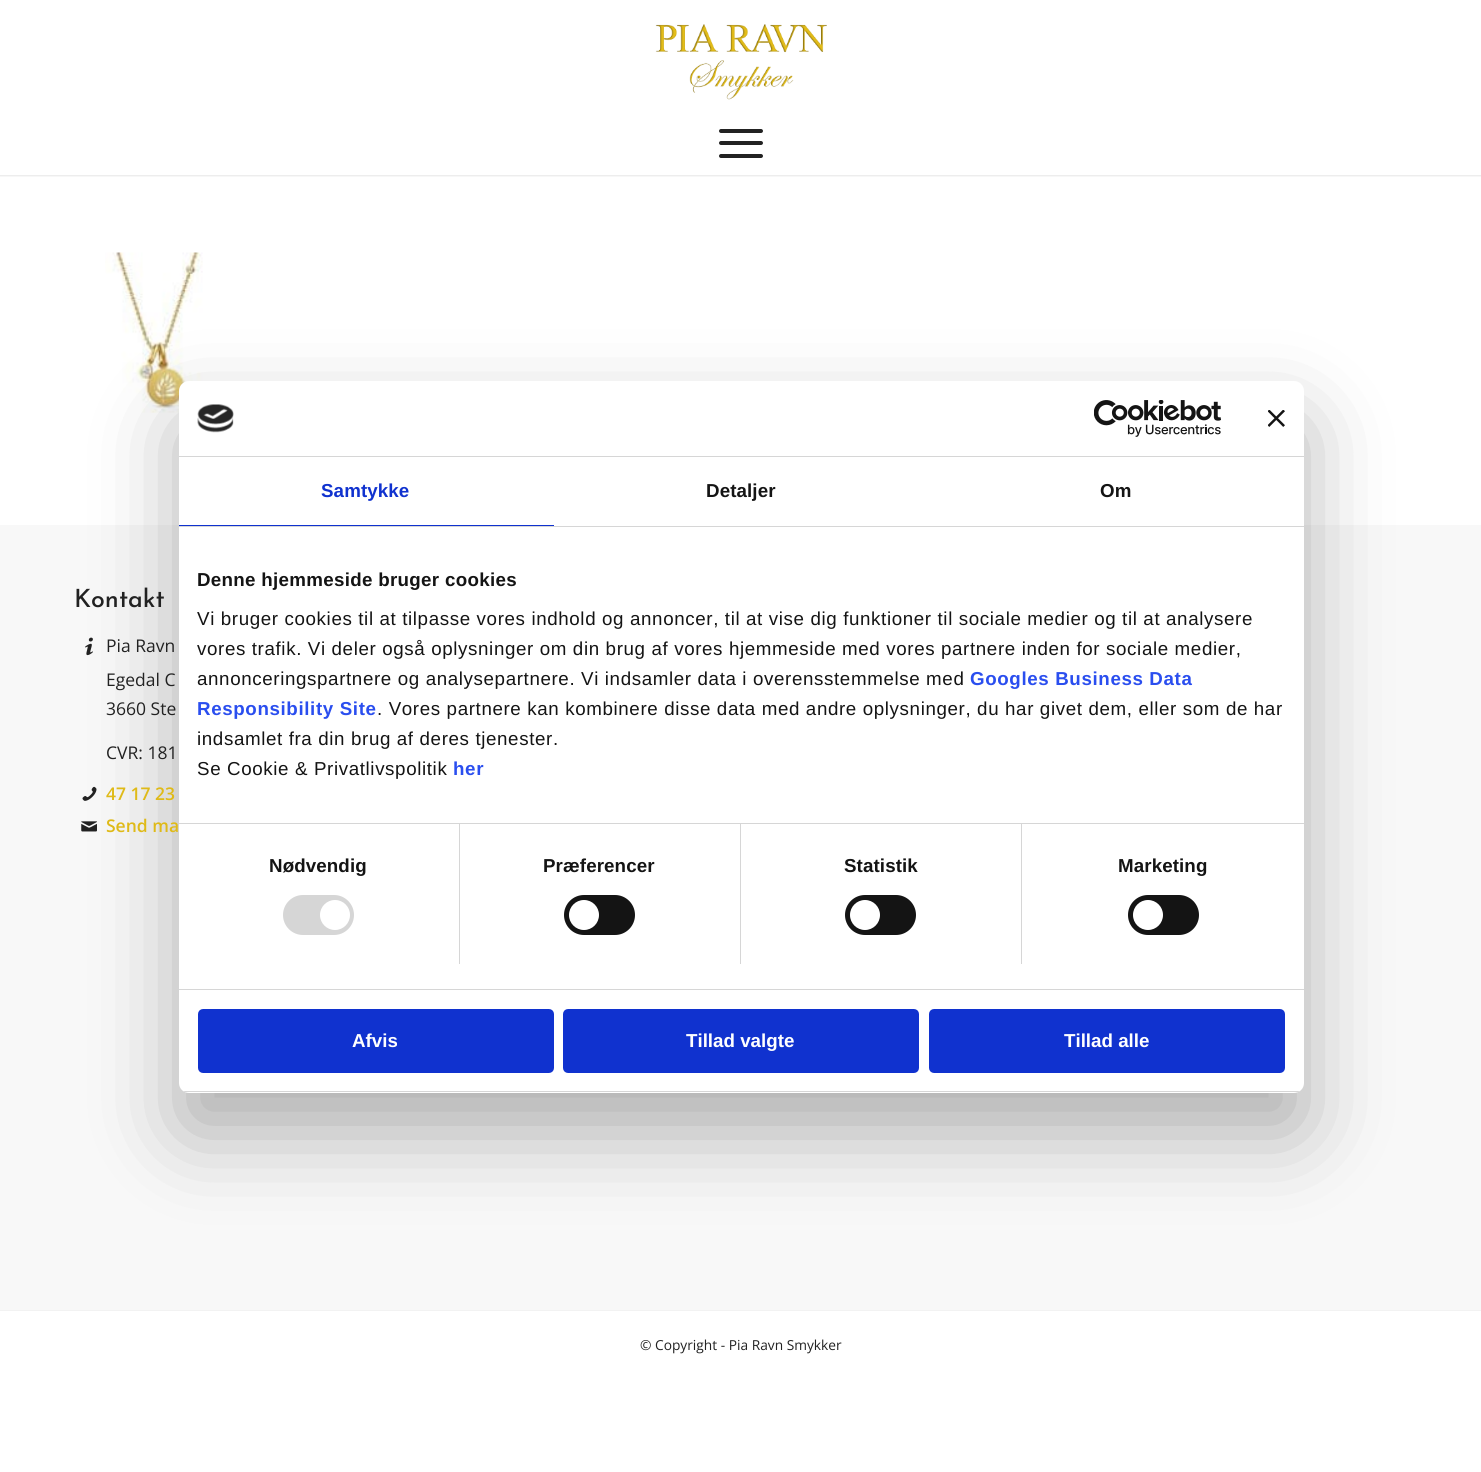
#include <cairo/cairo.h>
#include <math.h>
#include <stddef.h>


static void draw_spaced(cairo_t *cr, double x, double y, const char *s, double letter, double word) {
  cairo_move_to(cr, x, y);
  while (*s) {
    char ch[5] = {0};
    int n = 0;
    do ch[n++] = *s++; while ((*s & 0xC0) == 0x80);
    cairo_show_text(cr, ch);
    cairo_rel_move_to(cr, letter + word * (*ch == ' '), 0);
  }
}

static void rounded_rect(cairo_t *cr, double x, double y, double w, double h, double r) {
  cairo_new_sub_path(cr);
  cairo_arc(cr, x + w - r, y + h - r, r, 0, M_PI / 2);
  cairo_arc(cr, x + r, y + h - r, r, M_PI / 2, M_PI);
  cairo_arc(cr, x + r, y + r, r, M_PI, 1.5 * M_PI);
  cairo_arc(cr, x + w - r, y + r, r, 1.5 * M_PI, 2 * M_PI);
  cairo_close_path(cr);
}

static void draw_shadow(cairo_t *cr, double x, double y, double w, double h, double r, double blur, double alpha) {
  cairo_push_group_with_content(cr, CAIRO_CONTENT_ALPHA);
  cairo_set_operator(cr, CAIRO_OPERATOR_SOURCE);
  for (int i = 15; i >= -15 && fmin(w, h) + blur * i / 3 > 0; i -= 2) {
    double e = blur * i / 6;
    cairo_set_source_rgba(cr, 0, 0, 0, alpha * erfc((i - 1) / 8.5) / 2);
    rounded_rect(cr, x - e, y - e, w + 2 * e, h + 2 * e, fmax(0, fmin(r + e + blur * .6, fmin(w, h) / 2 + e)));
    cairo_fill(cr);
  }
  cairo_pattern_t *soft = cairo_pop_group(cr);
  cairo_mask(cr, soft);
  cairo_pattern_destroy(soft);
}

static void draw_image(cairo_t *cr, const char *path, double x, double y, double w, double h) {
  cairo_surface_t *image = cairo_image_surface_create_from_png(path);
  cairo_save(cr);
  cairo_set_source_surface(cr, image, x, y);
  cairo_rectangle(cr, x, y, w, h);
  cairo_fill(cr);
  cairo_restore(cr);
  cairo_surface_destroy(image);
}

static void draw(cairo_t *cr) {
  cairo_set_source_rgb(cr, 1, 1, 1);
  cairo_paint(cr);
  cairo_save(cr);
  cairo_rectangle(cr, 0, 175, 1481, 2);
  cairo_clip(cr);
  cairo_set_source_rgb(cr, 0, 0, 0);
  draw_shadow(cr, -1, -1, 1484, 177, 0, 1, 0.1);
  cairo_restore(cr);
  draw_image(cr, "images/1.png", 655, 24, 172, 76);
  cairo_set_source_rgb(cr, 34 / 255.0, 34 / 255.0, 34 / 255.0);
  rounded_rect(cr, 719, 141, 44, 4, 2);
  cairo_fill(cr);
  rounded_rect(cr, 719, 129, 44, 4, 2);
  cairo_fill(cr);
  rounded_rect(cr, 719, 154, 44, 4, 2);
  cairo_fill(cr);
  draw_image(cr, "images/2.png", 105, 252, 98, 161);
  cairo_set_source_rgb(cr, 248 / 255.0, 248 / 255.0, 248 / 255.0);
  cairo_rectangle(cr, 0, 525, 1481, 785);
  cairo_fill(cr);
  draw_image(cr, "images/3.png", 85, 637, 8, 19);
  draw_image(cr, "images/4.png", 82, 786, 15, 15);
  draw_image(cr, "images/5.png", 81, 821, 16, 11);
  cairo_set_source_rgb(cr, 0, 0, 0);
  draw_shadow(cr, 179, 421, 1125, 712, 10, 42.5, 0.3);
  cairo_set_source_rgb(cr, 1, 1, 1);
  rounded_rect(cr, 179, 381, 1125, 712, 10);
  cairo_fill(cr);
  cairo_set_source_rgb(cr, 214 / 255.0, 214 / 255.0, 214 / 255.0);
  cairo_rectangle(cr, 179, 456, 1125, 1);
  cairo_fill(cr);
  draw_image(cr, "images/6.png", 197, 404, 37, 29);
  draw_image(cr, "images/7.png", 1094, 400, 127, 37);
  draw_image(cr, "images/8.png", 1268, 410, 17, 17);
  cairo_rectangle(cr, 179, 526, 1125, 1);
  cairo_fill(cr);
  cairo_set_source_rgb(cr, 16 / 255.0, 50 / 255.0, 207 / 255.0);
  cairo_rectangle(cr, 179, 525, 375, 1);
  cairo_fill(cr);
  cairo_set_source_rgb(cr, 214 / 255.0, 214 / 255.0, 214 / 255.0);
  cairo_rectangle(cr, 179, 823, 1125, 1);
  cairo_fill(cr);
  cairo_rectangle(cr, 179, 989, 1125, 1);
  cairo_fill(cr);
  cairo_rectangle(cr, 459, 824, 1, 140);
  cairo_fill(cr);
  rounded_rect(cr, 283, 895, 71, 40, 20);
  cairo_fill(cr);
  cairo_set_source_rgb(cr, 1, 1, 1);
  cairo_arc(cr, 335, 915, 15, 0, 2 * M_PI);
  cairo_fill(cr);
  cairo_set_source_rgb(cr, 214 / 255.0, 214 / 255.0, 214 / 255.0);
  cairo_rectangle(cr, 740, 824, 1, 140);
  cairo_fill(cr);
  cairo_set_source_rgb(cr, 20 / 255.0, 20 / 255.0, 20 / 255.0);
  rounded_rect(cr, 564, 895, 71, 40, 20);
  cairo_fill(cr);
  cairo_set_source_rgb(cr, 1, 1, 1);
  cairo_arc(cr, 584, 915, 15, 0, 2 * M_PI);
  cairo_fill(cr);
  cairo_set_source_rgb(cr, 214 / 255.0, 214 / 255.0, 214 / 255.0);
  cairo_rectangle(cr, 1021, 824, 1, 140);
  cairo_fill(cr);
  cairo_set_source_rgb(cr, 20 / 255.0, 20 / 255.0, 20 / 255.0);
  rounded_rect(cr, 845, 895, 71, 40, 20);
  cairo_fill(cr);
  cairo_set_source_rgb(cr, 1, 1, 1);
  cairo_arc(cr, 865, 915, 15, 0, 2 * M_PI);
  cairo_fill(cr);
  cairo_set_source_rgb(cr, 20 / 255.0, 20 / 255.0, 20 / 255.0);
  rounded_rect(cr, 1128, 895, 71, 40, 20);
  cairo_fill(cr);
  cairo_set_source_rgb(cr, 1, 1, 1);
  cairo_arc(cr, 1148, 915, 15, 0, 2 * M_PI);
  cairo_fill(cr);
  cairo_save(cr);
  rounded_rect(cr, 179, 381, 1125, 712, 10);
  cairo_clip(cr);
  cairo_set_source_rgb(cr, 214 / 255.0, 214 / 255.0, 214 / 255.0);
  cairo_rectangle(cr, 179, 1091, 1125, 1);
  cairo_fill(cr);
  cairo_restore(cr);
  cairo_set_source_rgb(cr, 16 / 255.0, 50 / 255.0, 207 / 255.0);
  rounded_rect(cr, 199.5, 1010.5, 353, 61, 3.5);
  cairo_fill_preserve(cr);
  cairo_set_line_width(cr, 3);
  cairo_stroke(cr);
  rounded_rect(cr, 564.5, 1010.5, 353, 61, 3.5);
  cairo_fill_preserve(cr);
  cairo_stroke(cr);
  rounded_rect(cr, 930.5, 1010.5, 353, 61, 3.5);
  cairo_fill_preserve(cr);
  cairo_stroke(cr);
  cairo_set_source_rgb(cr, 242 / 255.0, 242 / 255.0, 242 / 255.0);
  cairo_rectangle(cr, 0, 1310, 1481, 1);
  cairo_fill(cr);
  cairo_select_font_face(cr, "Josefin Sans Medium", CAIRO_FONT_SLANT_NORMAL, CAIRO_FONT_WEIGHT_NORMAL);
  cairo_set_font_size(cr, 25);
  cairo_set_source_rgb(cr, 34 / 255.0, 34 / 255.0, 34 / 255.0);
  cairo_move_to(cr, 74, 607);
  cairo_show_text(cr, "Kontakt");
  cairo_select_font_face(cr, "Open Sans", CAIRO_FONT_SLANT_NORMAL, CAIRO_FONT_WEIGHT_NORMAL);
  cairo_set_font_size(cr, 17.5);
  cairo_move_to(cr, 106, 652);
  cairo_show_text(cr, "Pia Ravn");
  cairo_move_to(cr, 106, 686);
  cairo_show_text(cr, "Egedal C");
  cairo_move_to(cr, 106, 715);
  cairo_show_text(cr, "3660 Ste");
  cairo_move_to(cr, 106, 759);
  cairo_show_text(cr, "CVR: 181");
  cairo_select_font_face(cr, "Open Sans SemiBold", CAIRO_FONT_SLANT_NORMAL, CAIRO_FONT_WEIGHT_NORMAL);
  cairo_set_source_rgb(cr, 223 / 255.0, 186 / 255.0, 24 / 255.0);
  cairo_move_to(cr, 106, 800);
  cairo_show_text(cr, "47 17 23");
  cairo_move_to(cr, 106, 832);
  cairo_show_text(cr, "Send ma");
  cairo_select_font_face(cr, "Liberation Sans", CAIRO_FONT_SLANT_NORMAL, CAIRO_FONT_WEIGHT_BOLD);
  cairo_set_font_size(cr, 18.75);
  cairo_set_source_rgb(cr, 16 / 255.0, 50 / 255.0, 207 / 255.0);
  draw_spaced(cr, 321, 497, "Samtykke", 0.1, 0);
  cairo_set_source_rgb(cr, 20 / 255.0, 20 / 255.0, 20 / 255.0);
  draw_spaced(cr, 706, 497, "Detaljer", 0.1, 0);
  draw_spaced(cr, 1100, 497, "Om", 0.1, 0);
  draw_spaced(cr, 197, 586, "Denne hjemmeside bruger cookies", 0.3, 0);
  cairo_select_font_face(cr, "Liberation Sans", CAIRO_FONT_SLANT_NORMAL, CAIRO_FONT_WEIGHT_NORMAL);
  draw_spaced(cr, 197, 625, "Vi bruger cookies til at tilpasse vores indhold og annoncer, til at vise dig funktioner til sociale medier og til at analysere", 0.62, 0);
  draw_spaced(cr, 197, 655, "vores trafik. Vi deler også oplysninger om din brug af vores hjemmeside med vores partnere inden for sociale medier,", 0.62, 0);
  draw_spaced(cr, 197, 685, "annonceringspartnere og analysepartnere. Vi indsamler data i overensstemmelse med", 0.62, 0);
  cairo_select_font_face(cr, "Liberation Sans", CAIRO_FONT_SLANT_NORMAL, CAIRO_FONT_WEIGHT_BOLD);
  cairo_set_source_rgb(cr, 42 / 255.0, 78 / 255.0, 239 / 255.0);
  draw_spaced(cr, 970, 685, "Googles Business Data", 0.62, 0);
  draw_spaced(cr, 197, 715, "Responsibility Site", 0.62, 0);
  cairo_select_font_face(cr, "Liberation Sans", CAIRO_FONT_SLANT_NORMAL, CAIRO_FONT_WEIGHT_NORMAL);
  cairo_set_source_rgb(cr, 20 / 255.0, 20 / 255.0, 20 / 255.0);
  draw_spaced(cr, 377, 715, ". Vores partnere kan kombinere disse data med andre oplysninger, du har givet dem, eller som de har", 0.62, 0);
  draw_spaced(cr, 197, 745, "indsamlet fra din brug af deres tjenester.", 0.62, 0);
  draw_spaced(cr, 197, 775, "Se Cookie & Privatlivspolitik", 0.62, 0);
  cairo_select_font_face(cr, "Liberation Sans", CAIRO_FONT_SLANT_NORMAL, CAIRO_FONT_WEIGHT_BOLD);
  cairo_set_source_rgb(cr, 42 / 255.0, 78 / 255.0, 239 / 255.0);
  draw_spaced(cr, 453, 775, "her", 0.62, 0);
  cairo_set_source_rgb(cr, 20 / 255.0, 20 / 255.0, 20 / 255.0);
  draw_spaced(cr, 269, 872, "Nødvendig", 0.1, 0);
  draw_spaced(cr, 543, 872, "Præferencer", 0.1, 0);
  draw_spaced(cr, 844, 872, "Statistik", 0.1, 0);
  draw_spaced(cr, 1118, 872, "Marketing", 0.1, 0);
  cairo_set_source_rgb(cr, 1, 1, 1);
  cairo_move_to(cr, 352, 1047);
  cairo_show_text(cr, "Afvis");
  cairo_move_to(cr, 686, 1047);
  cairo_show_text(cr, "Tillad valgte");
  cairo_move_to(cr, 1064, 1047);
  cairo_show_text(cr, "Tillad alle");
  cairo_select_font_face(cr, "Open Sans", CAIRO_FONT_SLANT_NORMAL, CAIRO_FONT_WEIGHT_NORMAL);
  cairo_set_font_size(cr, 13.75);
  cairo_set_source_rgb(cr, 34 / 255.0, 34 / 255.0, 34 / 255.0);
  cairo_move_to(cr, 640, 1350);
  cairo_show_text(cr, "© Copyright - Pia Ravn Smykker");
}

int main(void) {
  cairo_surface_t *surface = cairo_image_surface_create(CAIRO_FORMAT_RGB24, 1481, 1472);
  cairo_t *cr = cairo_create(surface);
  cairo_font_options_t *options = cairo_font_options_create();
  cairo_font_options_set_hint_metrics(options, CAIRO_HINT_METRICS_OFF);
  cairo_font_options_set_hint_style(options, CAIRO_HINT_STYLE_NONE);
  cairo_set_font_options(cr, options);
  cairo_set_miter_limit(cr, 4);
  draw(cr);
  cairo_surface_write_to_png(surface, "out.png");
  cairo_font_options_destroy(options);
  cairo_destroy(cr);
  cairo_surface_destroy(surface);
  return 0;
}
